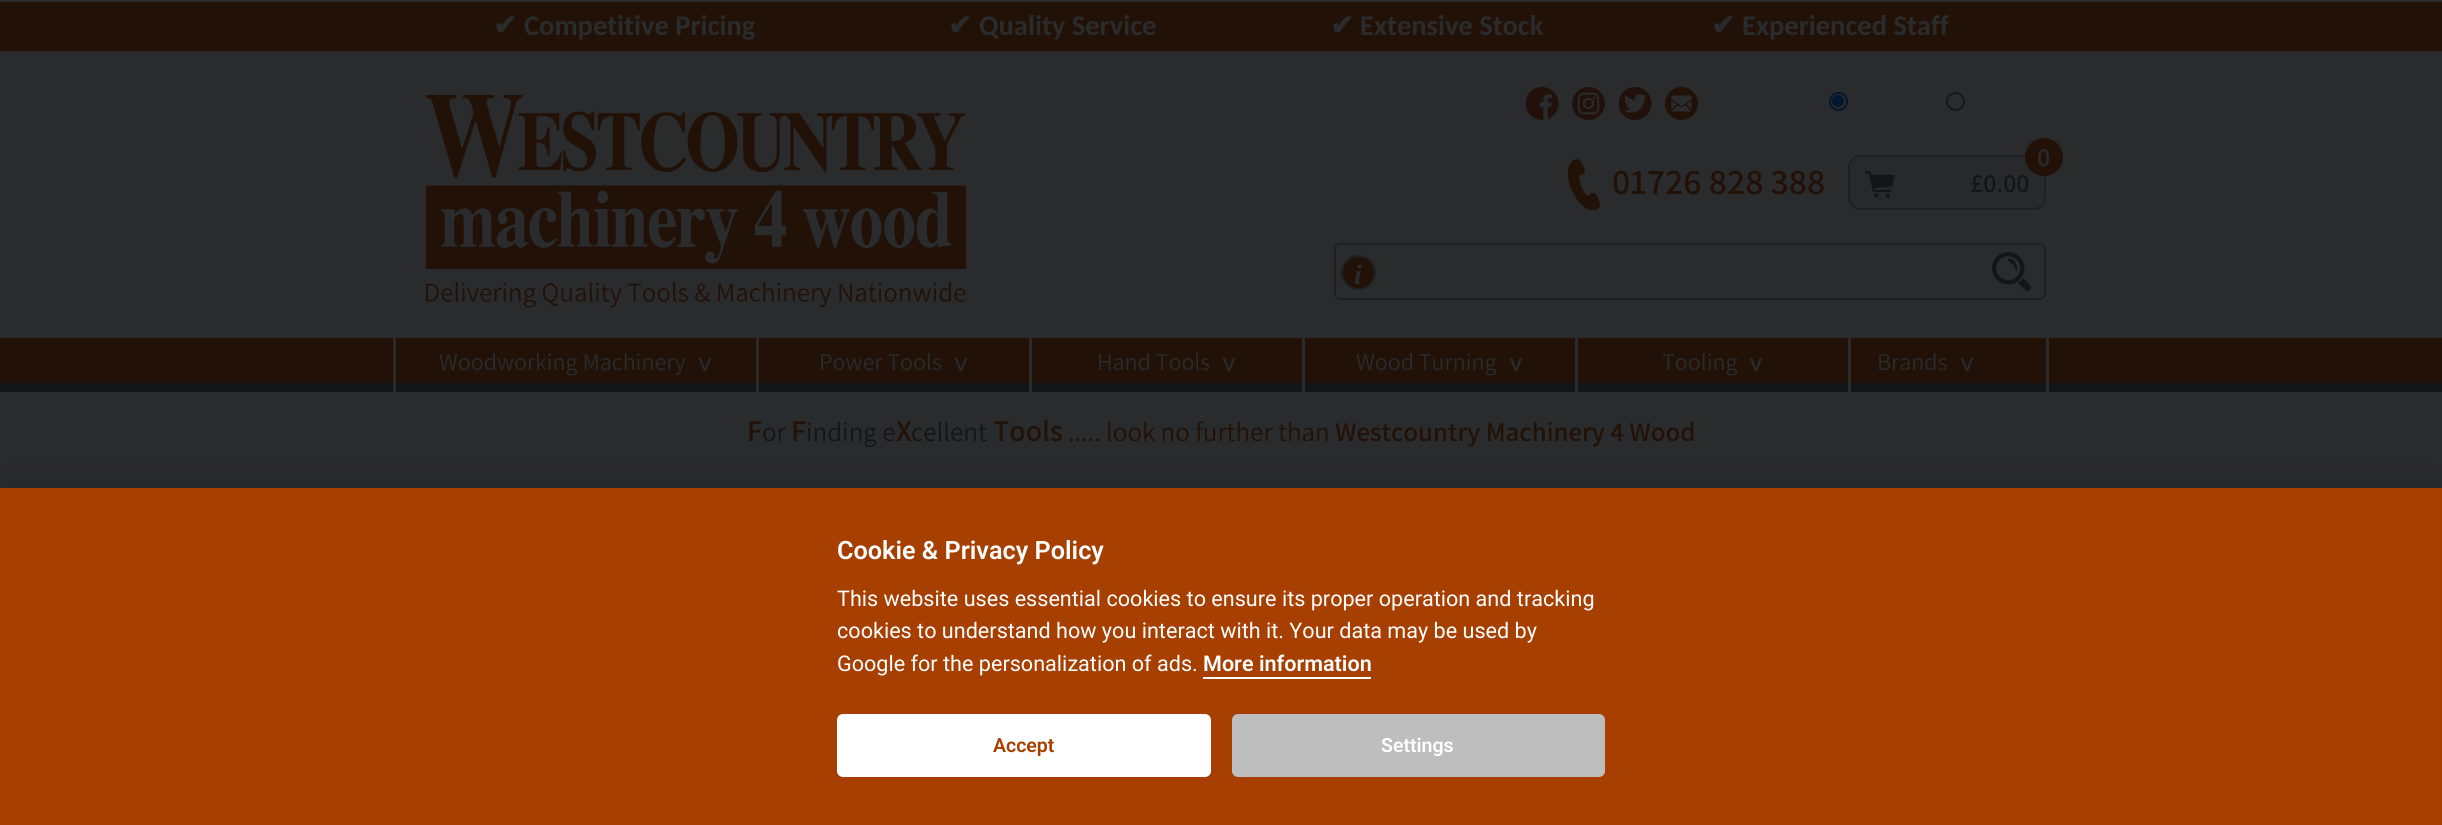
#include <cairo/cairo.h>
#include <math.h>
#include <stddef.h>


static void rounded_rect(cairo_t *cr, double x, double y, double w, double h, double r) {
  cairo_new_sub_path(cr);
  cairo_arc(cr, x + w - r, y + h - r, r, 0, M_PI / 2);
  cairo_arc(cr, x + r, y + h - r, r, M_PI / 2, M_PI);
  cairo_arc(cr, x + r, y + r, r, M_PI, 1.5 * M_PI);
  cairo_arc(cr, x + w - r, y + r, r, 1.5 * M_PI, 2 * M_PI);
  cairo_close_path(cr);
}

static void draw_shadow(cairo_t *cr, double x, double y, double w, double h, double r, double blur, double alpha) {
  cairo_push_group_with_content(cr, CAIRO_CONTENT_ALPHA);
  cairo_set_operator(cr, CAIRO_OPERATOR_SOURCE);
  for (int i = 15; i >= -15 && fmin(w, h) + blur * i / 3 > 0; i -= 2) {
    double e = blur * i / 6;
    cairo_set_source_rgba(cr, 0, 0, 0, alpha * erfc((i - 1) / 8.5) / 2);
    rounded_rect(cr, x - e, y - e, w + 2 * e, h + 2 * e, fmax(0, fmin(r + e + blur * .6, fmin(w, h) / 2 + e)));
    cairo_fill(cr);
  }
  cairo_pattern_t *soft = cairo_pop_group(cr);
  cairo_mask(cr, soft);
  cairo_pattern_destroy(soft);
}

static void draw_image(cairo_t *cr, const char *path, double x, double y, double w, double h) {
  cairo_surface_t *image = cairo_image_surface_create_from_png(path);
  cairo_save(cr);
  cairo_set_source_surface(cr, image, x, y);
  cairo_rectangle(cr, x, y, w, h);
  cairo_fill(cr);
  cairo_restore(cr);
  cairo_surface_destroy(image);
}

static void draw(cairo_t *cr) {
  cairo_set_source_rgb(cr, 42 / 255.0, 43 / 255.0, 45 / 255.0);
  cairo_paint(cr);
  cairo_set_source_rgb(cr, 33 / 255.0, 17 / 255.0, 7 / 255.0);
  cairo_rectangle(cr, 0, 2, 2442, 49);
  cairo_fill(cr);
  draw_image(cr, "images/1.png", 426, 95, 540, 213);
  draw_image(cr, "images/2.png", 1526, 87, 33, 33);
  draw_image(cr, "images/3.png", 1572, 87, 33, 33);
  draw_image(cr, "images/4.png", 1619, 87, 33, 33);
  draw_image(cr, "images/5.png", 1665, 87, 33, 33);
  cairo_arc(cr, 1838.5, 101.5, 8.5, 0, 2 * M_PI);
  cairo_set_source_rgb(cr, 3 / 255.0, 23 / 255.0, 45 / 255.0);
  cairo_stroke(cr);
  cairo_arc(cr, 1838, 101, 6, 0, 2 * M_PI);
  cairo_fill(cr);
  cairo_arc(cr, 1955.5, 101.5, 8.5, 0, 2 * M_PI);
  cairo_set_source_rgb(cr, 21 / 255.0, 23 / 255.0, 25 / 255.0);
  cairo_stroke(cr);
  cairo_save(cr);
  cairo_rectangle(cr, 1568, 159, 33, 51);
  cairo_clip(cr);
  cairo_set_source_rgb(cr, 33 / 255.0, 17 / 255.0, 7 / 255.0);
  cairo_new_path(cr);
  cairo_move_to(cr, 1600, 204);
  cairo_curve_to(cr, 1599, 201, 1597, 192, 1592, 193);
  cairo_line_to(cr, 1587, 196);
  cairo_curve_to(cr, 1582, 190, 1580, 184, 1579, 176);
  cairo_curve_to(cr, 1586, 173, 1586, 173, 1583, 165);
  cairo_curve_to(cr, 1580, 160, 1580, 158, 1574, 160);
  cairo_curve_to(cr, 1557, 170, 1578, 215, 1596, 210);
  cairo_curve_to(cr, 1598, 209, 1601, 207, 1600, 204);
  cairo_close_path(cr);
  cairo_fill(cr);
  cairo_restore(cr);
  cairo_set_source_rgb(cr, 39 / 255.0, 41 / 255.0, 43 / 255.0);
  rounded_rect(cr, 1849, 156, 196, 53, 11);
  cairo_fill_preserve(cr);
  cairo_set_source_rgb(cr, 31 / 255.0, 32 / 255.0, 34 / 255.0);
  cairo_stroke(cr);
  draw_image(cr, "images/6.png", 1865, 171, 30, 27);
  rounded_rect(cr, 1335, 244, 710, 55, 5);
  cairo_stroke(cr);
  cairo_set_source_rgb(cr, 33 / 255.0, 17 / 255.0, 7 / 255.0);
  cairo_arc(cr, 1358.5, 272.5, 16.5, 0, 2 * M_PI);
  cairo_fill_preserve(cr);
  cairo_set_source_rgb(cr, 31 / 255.0, 32 / 255.0, 34 / 255.0);
  cairo_stroke(cr);
  draw_image(cr, "images/7.png", 1992, 252, 39, 39);
  cairo_set_source_rgb(cr, 33 / 255.0, 17 / 255.0, 7 / 255.0);
  cairo_rectangle(cr, 0, 338, 2442, 45);
  cairo_fill(cr);
  cairo_set_source_rgb(cr, 19 / 255.0, 21 / 255.0, 22 / 255.0);
  cairo_rectangle(cr, 0, 383, 2442, 9);
  cairo_fill(cr);
  cairo_set_source_rgb(cr, 42 / 255.0, 43 / 255.0, 45 / 255.0);
  cairo_rectangle(cr, 393, 338, 3, 54);
  cairo_fill(cr);
  cairo_rectangle(cr, 756, 338, 3, 54);
  cairo_fill(cr);
  cairo_rectangle(cr, 1029, 338, 3, 54);
  cairo_fill(cr);
  cairo_rectangle(cr, 1302, 338, 3, 54);
  cairo_fill(cr);
  cairo_rectangle(cr, 1575, 338, 3, 54);
  cairo_fill(cr);
  cairo_rectangle(cr, 1848, 338, 3, 54);
  cairo_fill(cr);
  cairo_rectangle(cr, 2046, 338, 3, 54);
  cairo_fill(cr);
  cairo_set_source_rgb(cr, 2 / 255.0, 2 / 255.0, 3 / 255.0);
  draw_shadow(cr, 0, 503, 2442, 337, 0, 22.5, 0.28);
  cairo_set_source_rgb(cr, 166 / 255.0, 63 / 255.0, 0);
  cairo_rectangle(cr, 0, 488, 2442, 337);
  cairo_fill(cr);
  cairo_set_source_rgb(cr, 1, 1, 1);
  cairo_rectangle(cr, 1203, 677, 168, 2);
  cairo_fill(cr);
  rounded_rect(cr, 837, 714, 374, 63, 6);
  cairo_fill(cr);
  cairo_set_source_rgb(cr, 190 / 255.0, 190 / 255.0, 190 / 255.0);
  rounded_rect(cr, 1232, 714, 373, 63, 6);
  cairo_fill(cr);
  cairo_select_font_face(cr, "DejaVu Sans", CAIRO_FONT_SLANT_NORMAL, CAIRO_FONT_WEIGHT_BOLD);
  cairo_set_font_size(cr, 28.5);
  cairo_set_source_rgb(cr, 42 / 255.0, 43 / 255.0, 45 / 255.0);
  cairo_move_to(cr, 493, 35);
  cairo_show_text(cr, "✔");
  cairo_select_font_face(cr, "Carlito", CAIRO_FONT_SLANT_NORMAL, CAIRO_FONT_WEIGHT_BOLD);
  cairo_move_to(cr, 524, 35);
  cairo_show_text(cr, "Competitive Pricing");
  cairo_select_font_face(cr, "DejaVu Sans", CAIRO_FONT_SLANT_NORMAL, CAIRO_FONT_WEIGHT_BOLD);
  cairo_move_to(cr, 948, 35);
  cairo_show_text(cr, "✔");
  cairo_select_font_face(cr, "Carlito", CAIRO_FONT_SLANT_NORMAL, CAIRO_FONT_WEIGHT_BOLD);
  cairo_move_to(cr, 979, 35);
  cairo_show_text(cr, "Quality Service");
  cairo_select_font_face(cr, "DejaVu Sans", CAIRO_FONT_SLANT_NORMAL, CAIRO_FONT_WEIGHT_BOLD);
  cairo_move_to(cr, 1330, 35);
  cairo_show_text(cr, "✔");
  cairo_select_font_face(cr, "Carlito", CAIRO_FONT_SLANT_NORMAL, CAIRO_FONT_WEIGHT_BOLD);
  cairo_move_to(cr, 1360, 35);
  cairo_show_text(cr, "Extensive Stock");
  cairo_select_font_face(cr, "DejaVu Sans", CAIRO_FONT_SLANT_NORMAL, CAIRO_FONT_WEIGHT_BOLD);
  cairo_move_to(cr, 1711, 35);
  cairo_show_text(cr, "✔");
  cairo_select_font_face(cr, "Carlito", CAIRO_FONT_SLANT_NORMAL, CAIRO_FONT_WEIGHT_BOLD);
  cairo_move_to(cr, 1742, 35);
  cairo_show_text(cr, "Experienced Staff");
  cairo_select_font_face(cr, "Assistant SemiBold", CAIRO_FONT_SLANT_NORMAL, CAIRO_FONT_WEIGHT_NORMAL);
  cairo_set_font_size(cr, 36);
  cairo_set_source_rgb(cr, 33 / 255.0, 17 / 255.0, 7 / 255.0);
  cairo_move_to(cr, 1612, 194);
  cairo_show_text(cr, "01726 828 388");
  cairo_set_font_size(cr, 26);
  cairo_set_source_rgb(cr, 19 / 255.0, 21 / 255.0, 23 / 255.0);
  cairo_move_to(cr, 1970, 192);
  cairo_show_text(cr, "£0.00");
  cairo_set_source_rgb(cr, 33 / 255.0, 17 / 255.0, 7 / 255.0);
  cairo_new_path(cr);
  cairo_arc(cr, 2044, 157, 19, 0, 2 * M_PI);
  cairo_fill(cr);
  cairo_set_source_rgb(cr, 42 / 255.0, 43 / 255.0, 45 / 255.0);
  cairo_move_to(cr, 2037, 166);
  cairo_show_text(cr, "0");
  cairo_select_font_face(cr, "Liberation Serif", CAIRO_FONT_SLANT_ITALIC, CAIRO_FONT_WEIGHT_BOLD);
  cairo_set_font_size(cr, 28);
  cairo_move_to(cr, 1354, 284);
  cairo_show_text(cr, "i");
  cairo_select_font_face(cr, "Assistant", CAIRO_FONT_SLANT_NORMAL, CAIRO_FONT_WEIGHT_NORMAL);
  cairo_set_font_size(cr, 24);
  cairo_move_to(cr, 439, 370);
  cairo_show_text(cr, "Woodworking Machinery");
  cairo_select_font_face(cr, "Assistant SemiBold", CAIRO_FONT_SLANT_NORMAL, CAIRO_FONT_WEIGHT_NORMAL);
  cairo_set_font_size(cr, 30);
  cairo_save(cr);
  cairo_translate(cr, 695, 357);
  cairo_rotate(cr, 90 * M_PI / 180);
  cairo_move_to(cr, 0, 0);
  cairo_show_text(cr, ">");
  cairo_restore(cr);
  cairo_select_font_face(cr, "Assistant", CAIRO_FONT_SLANT_NORMAL, CAIRO_FONT_WEIGHT_NORMAL);
  cairo_set_font_size(cr, 24);
  cairo_move_to(cr, 819, 370);
  cairo_show_text(cr, "Power Tools");
  cairo_select_font_face(cr, "Assistant SemiBold", CAIRO_FONT_SLANT_NORMAL, CAIRO_FONT_WEIGHT_NORMAL);
  cairo_set_font_size(cr, 30);
  cairo_save(cr);
  cairo_translate(cr, 951, 357);
  cairo_rotate(cr, 90 * M_PI / 180);
  cairo_move_to(cr, 0, 0);
  cairo_show_text(cr, ">");
  cairo_restore(cr);
  cairo_select_font_face(cr, "Assistant", CAIRO_FONT_SLANT_NORMAL, CAIRO_FONT_WEIGHT_NORMAL);
  cairo_set_font_size(cr, 24);
  cairo_move_to(cr, 1097, 370);
  cairo_show_text(cr, "Hand Tools");
  cairo_select_font_face(cr, "Assistant SemiBold", CAIRO_FONT_SLANT_NORMAL, CAIRO_FONT_WEIGHT_NORMAL);
  cairo_set_font_size(cr, 30);
  cairo_save(cr);
  cairo_translate(cr, 1219, 357);
  cairo_rotate(cr, 90 * M_PI / 180);
  cairo_move_to(cr, 0, 0);
  cairo_show_text(cr, ">");
  cairo_restore(cr);
  cairo_select_font_face(cr, "Assistant", CAIRO_FONT_SLANT_NORMAL, CAIRO_FONT_WEIGHT_NORMAL);
  cairo_set_font_size(cr, 24);
  cairo_move_to(cr, 1356, 370);
  cairo_show_text(cr, "Wood Turning");
  cairo_select_font_face(cr, "Assistant SemiBold", CAIRO_FONT_SLANT_NORMAL, CAIRO_FONT_WEIGHT_NORMAL);
  cairo_set_font_size(cr, 30);
  cairo_save(cr);
  cairo_translate(cr, 1506, 357);
  cairo_rotate(cr, 90 * M_PI / 180);
  cairo_move_to(cr, 0, 0);
  cairo_show_text(cr, ">");
  cairo_restore(cr);
  cairo_select_font_face(cr, "Assistant", CAIRO_FONT_SLANT_NORMAL, CAIRO_FONT_WEIGHT_NORMAL);
  cairo_set_font_size(cr, 24);
  cairo_move_to(cr, 1662, 370);
  cairo_show_text(cr, "Tooling");
  cairo_select_font_face(cr, "Assistant SemiBold", CAIRO_FONT_SLANT_NORMAL, CAIRO_FONT_WEIGHT_NORMAL);
  cairo_set_font_size(cr, 30);
  cairo_save(cr);
  cairo_translate(cr, 1746, 357);
  cairo_rotate(cr, 90 * M_PI / 180);
  cairo_move_to(cr, 0, 0);
  cairo_show_text(cr, ">");
  cairo_restore(cr);
  cairo_select_font_face(cr, "Assistant", CAIRO_FONT_SLANT_NORMAL, CAIRO_FONT_WEIGHT_NORMAL);
  cairo_set_font_size(cr, 24);
  cairo_move_to(cr, 1877, 370);
  cairo_show_text(cr, "Brands");
  cairo_select_font_face(cr, "Assistant SemiBold", CAIRO_FONT_SLANT_NORMAL, CAIRO_FONT_WEIGHT_NORMAL);
  cairo_set_font_size(cr, 30);
  cairo_save(cr);
  cairo_translate(cr, 1957, 357);
  cairo_rotate(cr, 90 * M_PI / 180);
  cairo_move_to(cr, 0, 0);
  cairo_show_text(cr, ">");
  cairo_restore(cr);
  cairo_set_source_rgb(cr, 33 / 255.0, 17 / 255.0, 7 / 255.0);
  cairo_move_to(cr, 747, 441);
  cairo_show_text(cr, "F");
  cairo_select_font_face(cr, "Assistant", CAIRO_FONT_SLANT_NORMAL, CAIRO_FONT_WEIGHT_NORMAL);
  cairo_set_font_size(cr, 27);
  cairo_set_source_rgb(cr, 19 / 255.0, 21 / 255.0, 23 / 255.0);
  cairo_move_to(cr, 762, 441);
  cairo_show_text(cr, "or");
  cairo_select_font_face(cr, "Assistant SemiBold", CAIRO_FONT_SLANT_NORMAL, CAIRO_FONT_WEIGHT_NORMAL);
  cairo_set_font_size(cr, 30);
  cairo_set_source_rgb(cr, 33 / 255.0, 17 / 255.0, 7 / 255.0);
  cairo_move_to(cr, 791, 441);
  cairo_show_text(cr, "F");
  cairo_select_font_face(cr, "Assistant", CAIRO_FONT_SLANT_NORMAL, CAIRO_FONT_WEIGHT_NORMAL);
  cairo_set_font_size(cr, 27);
  cairo_set_source_rgb(cr, 19 / 255.0, 21 / 255.0, 23 / 255.0);
  cairo_move_to(cr, 806, 441);
  cairo_show_text(cr, "inding e");
  cairo_select_font_face(cr, "Assistant SemiBold", CAIRO_FONT_SLANT_NORMAL, CAIRO_FONT_WEIGHT_NORMAL);
  cairo_set_font_size(cr, 30);
  cairo_set_source_rgb(cr, 33 / 255.0, 17 / 255.0, 7 / 255.0);
  cairo_move_to(cr, 896, 441);
  cairo_show_text(cr, "X");
  cairo_select_font_face(cr, "Assistant", CAIRO_FONT_SLANT_NORMAL, CAIRO_FONT_WEIGHT_NORMAL);
  cairo_set_font_size(cr, 27);
  cairo_set_source_rgb(cr, 19 / 255.0, 21 / 255.0, 23 / 255.0);
  cairo_move_to(cr, 911, 441);
  cairo_show_text(cr, "cellent");
  cairo_select_font_face(cr, "Assistant SemiBold", CAIRO_FONT_SLANT_NORMAL, CAIRO_FONT_WEIGHT_NORMAL);
  cairo_set_font_size(cr, 30);
  cairo_set_source_rgb(cr, 33 / 255.0, 17 / 255.0, 7 / 255.0);
  cairo_move_to(cr, 993, 441);
  cairo_show_text(cr, "Tools");
  cairo_select_font_face(cr, "Assistant", CAIRO_FONT_SLANT_NORMAL, CAIRO_FONT_WEIGHT_NORMAL);
  cairo_set_font_size(cr, 27);
  cairo_move_to(cr, 1068, 441);
  cairo_show_text(cr, "..... look no further than");
  cairo_select_font_face(cr, "Assistant SemiBold", CAIRO_FONT_SLANT_NORMAL, CAIRO_FONT_WEIGHT_NORMAL);
  cairo_move_to(cr, 1335, 441);
  cairo_show_text(cr, "Westcountry Machinery 4 Wood");
  cairo_select_font_face(cr, "Roboto SemiBold", CAIRO_FONT_SLANT_NORMAL, CAIRO_FONT_WEIGHT_NORMAL);
  cairo_set_font_size(cr, 25.25);
  cairo_set_source_rgb(cr, 1, 1, 1);
  cairo_move_to(cr, 837, 559);
  cairo_show_text(cr, "Cookie & Privacy Policy");
  cairo_select_font_face(cr, "Roboto", CAIRO_FONT_SLANT_NORMAL, CAIRO_FONT_WEIGHT_NORMAL);
  cairo_set_font_size(cr, 21.6);
  cairo_move_to(cr, 837, 606);
  cairo_show_text(cr, "This website uses essential cookies to ensure its proper operation and tracking");
  cairo_move_to(cr, 837, 638);
  cairo_show_text(cr, "cookies to understand how you interact with it. Your data may be used by");
  cairo_move_to(cr, 837, 671);
  cairo_show_text(cr, "Google for the personalization of ads.");
  cairo_select_font_face(cr, "Roboto SemiBold", CAIRO_FONT_SLANT_NORMAL, CAIRO_FONT_WEIGHT_NORMAL);
  cairo_move_to(cr, 1203, 671);
  cairo_show_text(cr, "More information");
  cairo_set_font_size(cr, 19.5);
  cairo_set_source_rgb(cr, 166 / 255.0, 63 / 255.0, 0);
  cairo_move_to(cr, 993, 752);
  cairo_show_text(cr, "Accept");
  cairo_set_source_rgb(cr, 1, 1, 1);
  cairo_move_to(cr, 1381, 752);
  cairo_show_text(cr, "Settings");
}

int main(void) {
  cairo_surface_t *surface = cairo_image_surface_create(CAIRO_FORMAT_RGB24, 2442, 825);
  cairo_t *cr = cairo_create(surface);
  cairo_font_options_t *options = cairo_font_options_create();
  cairo_font_options_set_hint_metrics(options, CAIRO_HINT_METRICS_OFF);
  cairo_font_options_set_hint_style(options, CAIRO_HINT_STYLE_NONE);
  cairo_set_font_options(cr, options);
  cairo_set_miter_limit(cr, 4);
  draw(cr);
  cairo_surface_write_to_png(surface, "out.png");
  cairo_font_options_destroy(options);
  cairo_destroy(cr);
  cairo_surface_destroy(surface);
  return 0;
}
